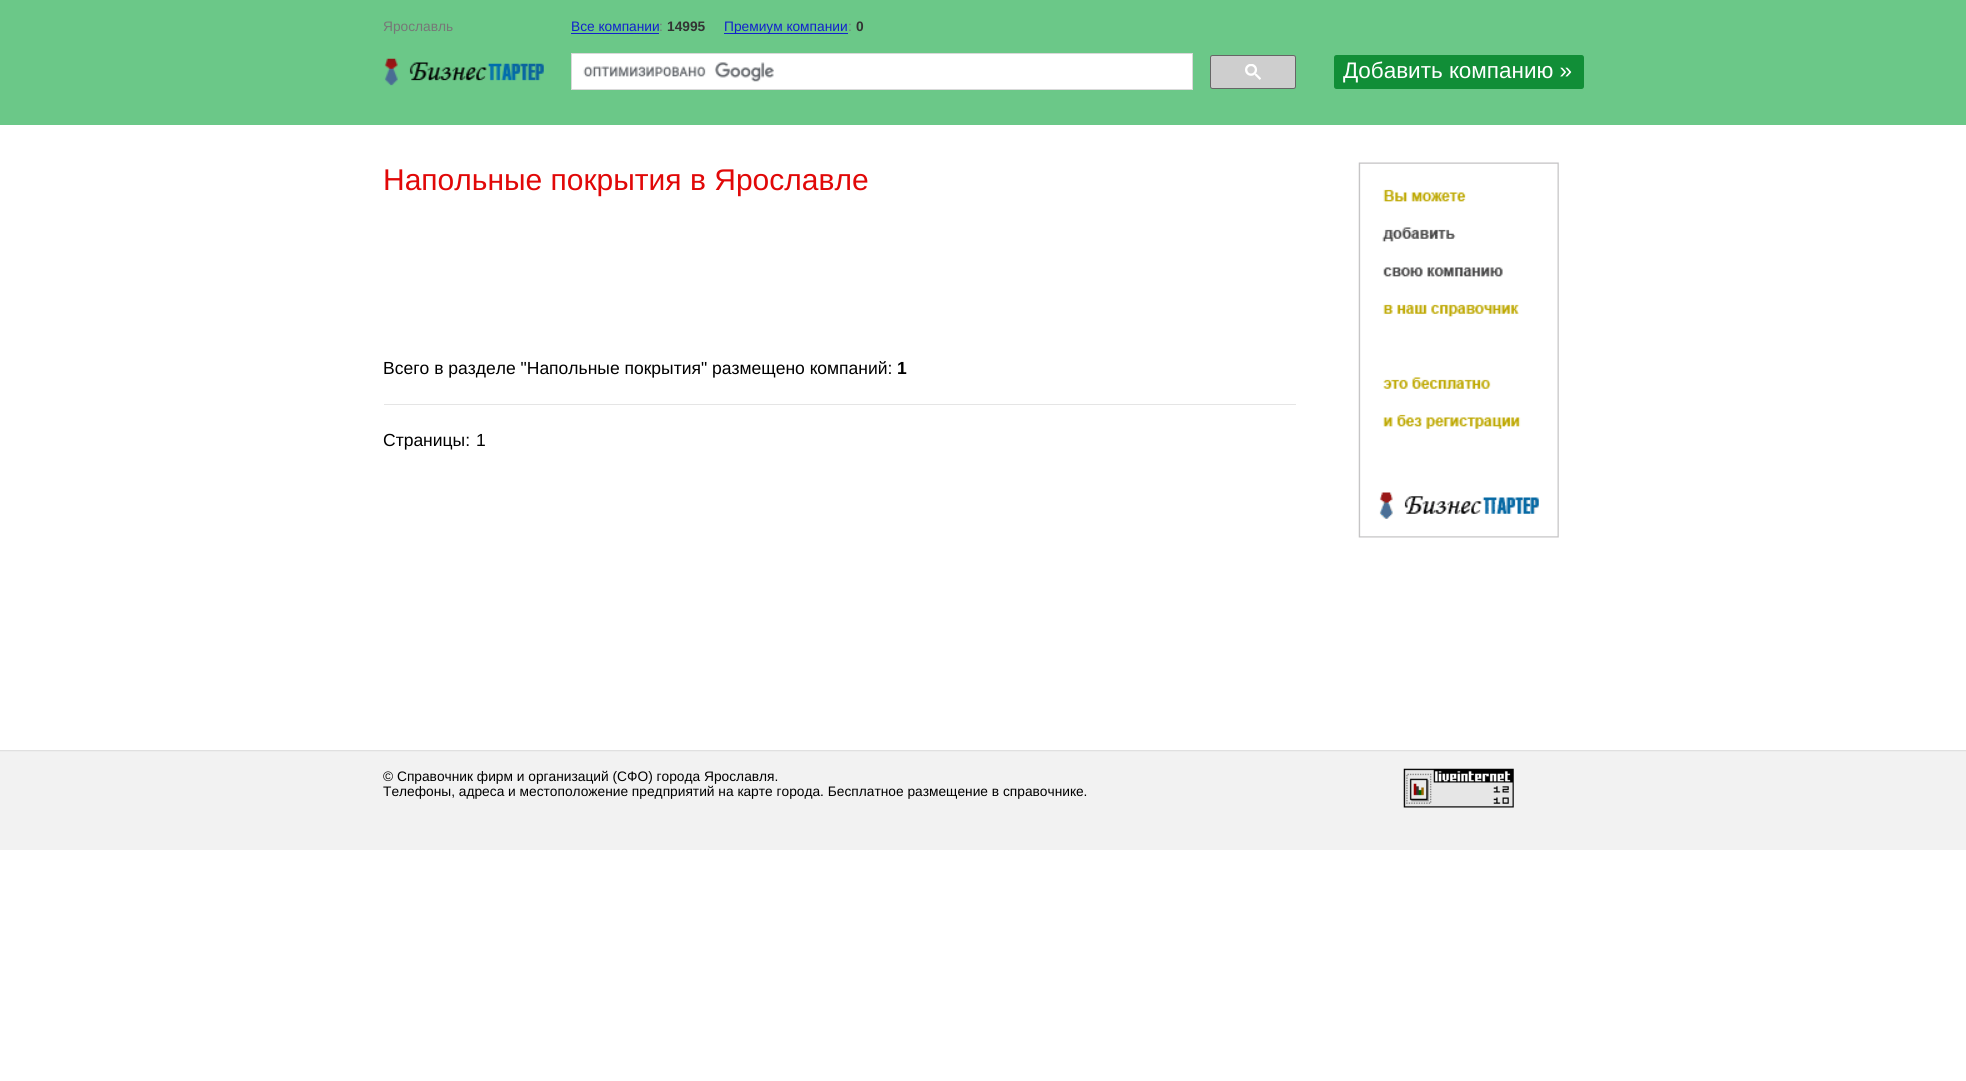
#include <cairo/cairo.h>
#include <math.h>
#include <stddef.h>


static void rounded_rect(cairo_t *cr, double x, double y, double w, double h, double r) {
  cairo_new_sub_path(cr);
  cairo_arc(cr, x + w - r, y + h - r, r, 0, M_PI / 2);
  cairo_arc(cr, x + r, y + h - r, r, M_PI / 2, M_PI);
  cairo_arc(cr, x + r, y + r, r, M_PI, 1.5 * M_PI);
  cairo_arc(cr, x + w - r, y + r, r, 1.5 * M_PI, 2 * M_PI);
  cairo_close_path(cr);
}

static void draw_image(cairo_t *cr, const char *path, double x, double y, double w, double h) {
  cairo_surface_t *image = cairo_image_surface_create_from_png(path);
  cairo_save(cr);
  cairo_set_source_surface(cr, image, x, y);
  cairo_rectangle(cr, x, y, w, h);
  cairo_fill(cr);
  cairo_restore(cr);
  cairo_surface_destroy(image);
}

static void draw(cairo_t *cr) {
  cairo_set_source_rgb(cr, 1, 1, 1);
  cairo_paint(cr);
  cairo_set_source_rgb(cr, 107 / 255.0, 200 / 255.0, 136 / 255.0);
  cairo_rectangle(cr, 0, 0, 1966, 125);
  cairo_fill(cr);
  cairo_set_source_rgb(cr, 17 / 255.0, 34 / 255.0, 204 / 255.0);
  cairo_rectangle(cr, 571, 33, 88, 1);
  cairo_fill(cr);
  cairo_rectangle(cr, 724, 33, 124, 1);
  cairo_fill(cr);
  draw_image(cr, "images/1.png", 384, 58, 160, 28);
  cairo_set_source_rgb(cr, 1, 1, 1);
  cairo_rectangle(cr, 571.5, 53.5, 621, 36);
  cairo_fill_preserve(cr);
  cairo_set_source_rgb(cr, 217 / 255.0, 217 / 255.0, 217 / 255.0);
  cairo_set_line_width(cr, 1);
  cairo_stroke(cr);
  draw_image(cr, "images/2.png", 583, 62, 191, 20);
  cairo_set_source_rgb(cr, 206 / 255.0, 206 / 255.0, 206 / 255.0);
  rounded_rect(cr, 1210.5, 55.5, 85, 33, 2);
  cairo_fill_preserve(cr);
  cairo_set_source_rgb(cr, 102 / 255.0, 102 / 255.0, 102 / 255.0);
  cairo_stroke(cr);
  draw_image(cr, "images/3.png", 1245, 64, 16, 16);
  cairo_set_source_rgb(cr, 17 / 255.0, 142 / 255.0, 55 / 255.0);
  rounded_rect(cr, 1334, 55, 250, 34, 2.5);
  cairo_fill(cr);
  cairo_set_source_rgb(cr, 229 / 255.0, 229 / 255.0, 229 / 255.0);
  cairo_rectangle(cr, 384, 404, 912, 1);
  cairo_fill(cr);
  draw_image(cr, "images/4.png", 1358, 162, 201, 376);
  draw_image(cr, "images/5.png", 0, 750, 1966, 100);
  draw_image(cr, "images/6.png", 1403, 768, 111, 40);
  cairo_select_font_face(cr, "Liberation Sans", CAIRO_FONT_SLANT_NORMAL, CAIRO_FONT_WEIGHT_NORMAL);
  cairo_set_font_size(cr, 13.75);
  cairo_set_source_rgb(cr, 119 / 255.0, 119 / 255.0, 119 / 255.0);
  cairo_move_to(cr, 383, 31);
  cairo_show_text(cr, "Ярославль");
  cairo_set_source_rgb(cr, 17 / 255.0, 34 / 255.0, 204 / 255.0);
  cairo_move_to(cr, 571, 31);
  cairo_show_text(cr, "Все компании");
  cairo_set_source_rgb(cr, 119 / 255.0, 119 / 255.0, 119 / 255.0);
  cairo_move_to(cr, 659, 31);
  cairo_show_text(cr, ":");
  cairo_select_font_face(cr, "Liberation Sans", CAIRO_FONT_SLANT_NORMAL, CAIRO_FONT_WEIGHT_BOLD);
  cairo_set_source_rgb(cr, 51 / 255.0, 51 / 255.0, 51 / 255.0);
  cairo_move_to(cr, 667, 31);
  cairo_show_text(cr, "14995");
  cairo_select_font_face(cr, "Liberation Sans", CAIRO_FONT_SLANT_NORMAL, CAIRO_FONT_WEIGHT_NORMAL);
  cairo_set_source_rgb(cr, 17 / 255.0, 34 / 255.0, 204 / 255.0);
  cairo_move_to(cr, 724, 31);
  cairo_show_text(cr, "Премиум компании");
  cairo_set_source_rgb(cr, 119 / 255.0, 119 / 255.0, 119 / 255.0);
  cairo_move_to(cr, 848, 31);
  cairo_show_text(cr, ":");
  cairo_select_font_face(cr, "Liberation Sans", CAIRO_FONT_SLANT_NORMAL, CAIRO_FONT_WEIGHT_BOLD);
  cairo_set_source_rgb(cr, 51 / 255.0, 51 / 255.0, 51 / 255.0);
  cairo_move_to(cr, 856, 31);
  cairo_show_text(cr, "0");
  cairo_select_font_face(cr, "Liberation Sans", CAIRO_FONT_SLANT_NORMAL, CAIRO_FONT_WEIGHT_NORMAL);
  cairo_set_font_size(cr, 22.5);
  cairo_set_source_rgb(cr, 1, 1, 1);
  cairo_move_to(cr, 1343, 78);
  cairo_show_text(cr, "Добавить компанию »");
  cairo_set_font_size(cr, 30);
  cairo_set_source_rgb(cr, 225 / 255.0, 8 / 255.0, 8 / 255.0);
  cairo_move_to(cr, 383, 190);
  cairo_show_text(cr, "Напольные покрытия в Ярославле");
  cairo_set_font_size(cr, 17.5);
  cairo_set_source_rgb(cr, 0, 0, 0);
  cairo_move_to(cr, 383, 374);
  cairo_show_text(cr, "Всего в разделе \"Напольные покрытия\" размещено компаний:");
  cairo_select_font_face(cr, "Liberation Sans", CAIRO_FONT_SLANT_NORMAL, CAIRO_FONT_WEIGHT_BOLD);
  cairo_move_to(cr, 897, 374);
  cairo_show_text(cr, "1");
  cairo_select_font_face(cr, "Liberation Sans", CAIRO_FONT_SLANT_NORMAL, CAIRO_FONT_WEIGHT_NORMAL);
  cairo_move_to(cr, 383, 446);
  cairo_show_text(cr, "Страницы:");
  cairo_move_to(cr, 476, 446);
  cairo_show_text(cr, "1");
  cairo_set_font_size(cr, 13.75);
  cairo_move_to(cr, 383, 781);
  cairo_show_text(cr, "© Справочник фирм и организаций (СФО) города Ярославля.");
  cairo_move_to(cr, 383, 796);
  cairo_show_text(cr, "Телефоны, адреса и местоположение предприятий на карте города. Бесплатное размещение в справочнике.");
}

int main(void) {
  cairo_surface_t *surface = cairo_image_surface_create(CAIRO_FORMAT_RGB24, 1966, 1081);
  cairo_t *cr = cairo_create(surface);
  cairo_font_options_t *options = cairo_font_options_create();
  cairo_font_options_set_hint_metrics(options, CAIRO_HINT_METRICS_OFF);
  cairo_font_options_set_hint_style(options, CAIRO_HINT_STYLE_NONE);
  cairo_set_font_options(cr, options);
  cairo_set_miter_limit(cr, 4);
  draw(cr);
  cairo_surface_write_to_png(surface, "out.png");
  cairo_font_options_destroy(options);
  cairo_destroy(cr);
  cairo_surface_destroy(surface);
  return 0;
}
